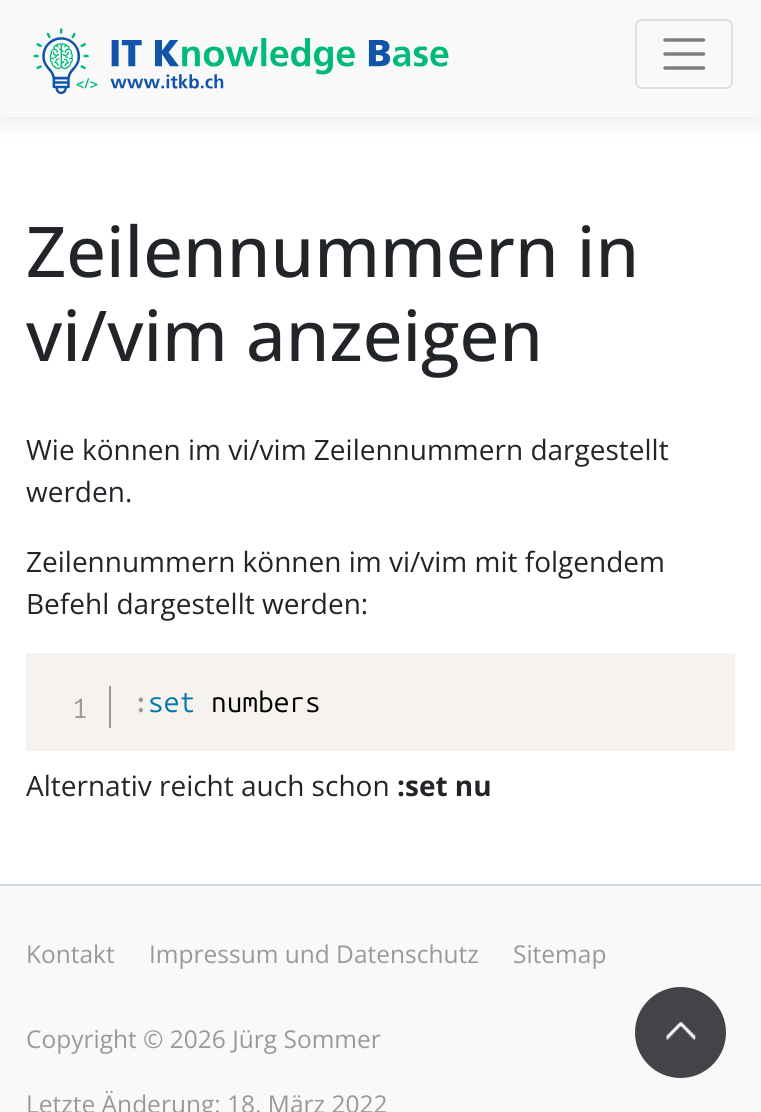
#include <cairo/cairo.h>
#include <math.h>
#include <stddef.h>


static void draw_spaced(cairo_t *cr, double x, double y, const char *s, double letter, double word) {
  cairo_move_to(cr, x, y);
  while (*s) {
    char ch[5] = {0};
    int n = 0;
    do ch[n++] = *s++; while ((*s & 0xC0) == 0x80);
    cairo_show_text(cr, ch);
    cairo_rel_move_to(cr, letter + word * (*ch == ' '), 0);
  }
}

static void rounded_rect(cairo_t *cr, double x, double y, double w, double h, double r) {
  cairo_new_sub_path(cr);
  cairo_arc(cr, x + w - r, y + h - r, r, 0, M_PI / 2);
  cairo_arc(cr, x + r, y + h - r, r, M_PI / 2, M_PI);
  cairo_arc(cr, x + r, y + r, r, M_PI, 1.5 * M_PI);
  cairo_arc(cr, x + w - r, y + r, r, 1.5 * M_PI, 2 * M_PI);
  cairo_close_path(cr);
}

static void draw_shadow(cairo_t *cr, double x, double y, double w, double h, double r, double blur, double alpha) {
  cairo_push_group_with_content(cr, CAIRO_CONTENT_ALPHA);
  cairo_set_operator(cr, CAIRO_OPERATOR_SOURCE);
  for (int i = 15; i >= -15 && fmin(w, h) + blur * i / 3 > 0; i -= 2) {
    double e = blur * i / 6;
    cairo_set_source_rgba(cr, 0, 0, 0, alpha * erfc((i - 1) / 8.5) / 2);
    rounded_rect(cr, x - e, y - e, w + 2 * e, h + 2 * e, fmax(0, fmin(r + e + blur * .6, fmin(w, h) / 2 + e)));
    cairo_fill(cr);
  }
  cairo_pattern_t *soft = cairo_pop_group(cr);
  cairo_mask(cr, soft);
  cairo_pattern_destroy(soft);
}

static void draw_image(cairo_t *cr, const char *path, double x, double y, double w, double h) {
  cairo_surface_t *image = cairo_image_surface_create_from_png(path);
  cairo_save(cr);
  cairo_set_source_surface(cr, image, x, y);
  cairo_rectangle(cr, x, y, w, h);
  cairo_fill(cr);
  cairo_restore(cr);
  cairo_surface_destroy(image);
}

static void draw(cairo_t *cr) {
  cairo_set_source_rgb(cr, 1, 1, 1);
  cairo_paint(cr);
  cairo_set_source_rgb(cr, 0, 0, 0);
  draw_shadow(cr, 0, 7, 761, 117, 0, 10.5, 0.08);
  cairo_set_source_rgb(cr, 249 / 255.0, 249 / 255.0, 249 / 255.0);
  cairo_rectangle(cr, 0, 0, 761, 117);
  cairo_fill(cr);
  draw_image(cr, "images/1.png", 33, 28, 416, 67);
  rounded_rect(cr, 636, 20, 96, 68, 6);
  cairo_set_source_rgb(cr, 224 / 255.0, 224 / 255.0, 224 / 255.0);
  cairo_stroke(cr);
  cairo_new_path(cr);
  cairo_move_to(cr, 665, 40);
  cairo_line_to(cr, 703.5, 40);
  cairo_move_to(cr, 665, 54);
  cairo_line_to(cr, 703.5, 54);
  cairo_move_to(cr, 665, 68);
  cairo_line_to(cr, 703.5, 68);
  cairo_set_source_rgb(cr, 125 / 255.0, 125 / 255.0, 125 / 255.0);
  cairo_set_line_width(cr, 3.5);
  cairo_set_line_cap(cr, CAIRO_LINE_CAP_ROUND);
  cairo_stroke(cr);
  cairo_set_source_rgb(cr, 245 / 255.0, 242 / 255.0, 240 / 255.0);
  cairo_rectangle(cr, 26, 653, 709, 98);
  cairo_fill(cr);
  cairo_set_source_rgb(cr, 153 / 255.0, 153 / 255.0, 153 / 255.0);
  cairo_rectangle(cr, 109, 686, 2, 42);
  cairo_fill(cr);
  cairo_set_source_rgb(cr, 249 / 255.0, 249 / 255.0, 249 / 255.0);
  cairo_rectangle(cr, 0, 886, 761, 226);
  cairo_fill(cr);
  cairo_set_source_rgb(cr, 208 / 255.0, 218 / 255.0, 226 / 255.0);
  cairo_rectangle(cr, 0, 884, 761, 2);
  cairo_fill(cr);
  cairo_set_source_rgb(cr, 68 / 255.0, 67 / 255.0, 74 / 255.0);
  cairo_arc(cr, 680.5, 1032.5, 45.5, 0, 2 * M_PI);
  cairo_fill(cr);
  draw_image(cr, "images/2.png", 666, 1022, 30, 18);
  cairo_select_font_face(cr, "Open Sans Medium", CAIRO_FONT_SLANT_NORMAL, CAIRO_FONT_WEIGHT_NORMAL);
  cairo_set_font_size(cr, 70);
  cairo_set_source_rgb(cr, 33 / 255.0, 37 / 255.0, 41 / 255.0);
  cairo_move_to(cr, 26, 277);
  cairo_show_text(cr, "Zeilennummern in");
  cairo_move_to(cr, 26, 361);
  cairo_show_text(cr, "vi/vim anzeigen");
  cairo_select_font_face(cr, "Open Sans", CAIRO_FONT_SLANT_NORMAL, CAIRO_FONT_WEIGHT_NORMAL);
  cairo_set_font_size(cr, 28);
  cairo_move_to(cr, 26, 460);
  cairo_show_text(cr, "Wie können im vi/vim Zeilennummern dargestellt");
  cairo_move_to(cr, 26, 502);
  cairo_show_text(cr, "werden.");
  cairo_move_to(cr, 26, 572);
  cairo_show_text(cr, "Zeilennummern können im vi/vim mit folgendem");
  cairo_move_to(cr, 26, 614);
  cairo_show_text(cr, "Befehl dargestellt werden:");
  cairo_select_font_face(cr, "Ubuntu Mono", CAIRO_FONT_SLANT_NORMAL, CAIRO_FONT_WEIGHT_NORMAL);
  cairo_set_source_rgb(cr, 153 / 255.0, 153 / 255.0, 153 / 255.0);
  draw_spaced(cr, 72, 718, "1", -2, 0);
  cairo_move_to(cr, 133, 712);
  cairo_show_text(cr, ":");
  cairo_set_source_rgb(cr, 0, 119 / 255.0, 170 / 255.0);
  cairo_move_to(cr, 148, 712);
  cairo_show_text(cr, "set");
  cairo_set_source_rgb(cr, 0, 0, 0);
  cairo_move_to(cr, 211, 712);
  cairo_show_text(cr, "numbers");
  cairo_select_font_face(cr, "Open Sans", CAIRO_FONT_SLANT_NORMAL, CAIRO_FONT_WEIGHT_NORMAL);
  cairo_set_source_rgb(cr, 33 / 255.0, 37 / 255.0, 41 / 255.0);
  cairo_move_to(cr, 26, 796);
  cairo_show_text(cr, "Alternativ reicht auch schon");
  cairo_select_font_face(cr, "Open Sans", CAIRO_FONT_SLANT_NORMAL, CAIRO_FONT_WEIGHT_BOLD);
  cairo_move_to(cr, 397, 796);
  cairo_show_text(cr, ":set nu");
  cairo_select_font_face(cr, "Open Sans", CAIRO_FONT_SLANT_NORMAL, CAIRO_FONT_WEIGHT_NORMAL);
  cairo_set_font_size(cr, 24.5);
  cairo_set_source_rgb(cr, 153 / 255.0, 153 / 255.0, 153 / 255.0);
  cairo_move_to(cr, 26, 963);
  cairo_show_text(cr, "Kontakt");
  cairo_move_to(cr, 149, 963);
  cairo_show_text(cr, "Impressum und Datenschutz");
  cairo_move_to(cr, 513, 963);
  cairo_show_text(cr, "Sitemap");
  cairo_move_to(cr, 26, 1048);
  cairo_show_text(cr, "Copyright © 2026 Jürg Sommer");
  cairo_move_to(cr, 26, 1113);
  cairo_show_text(cr, "Letzte Änderung: 18. März 2022");
}

int main(void) {
  cairo_surface_t *surface = cairo_image_surface_create(CAIRO_FORMAT_RGB24, 761, 1112);
  cairo_t *cr = cairo_create(surface);
  cairo_font_options_t *options = cairo_font_options_create();
  cairo_font_options_set_hint_metrics(options, CAIRO_HINT_METRICS_OFF);
  cairo_font_options_set_hint_style(options, CAIRO_HINT_STYLE_NONE);
  cairo_set_font_options(cr, options);
  cairo_set_miter_limit(cr, 4);
  draw(cr);
  cairo_surface_write_to_png(surface, "out.png");
  cairo_font_options_destroy(options);
  cairo_destroy(cr);
  cairo_surface_destroy(surface);
  return 0;
}
